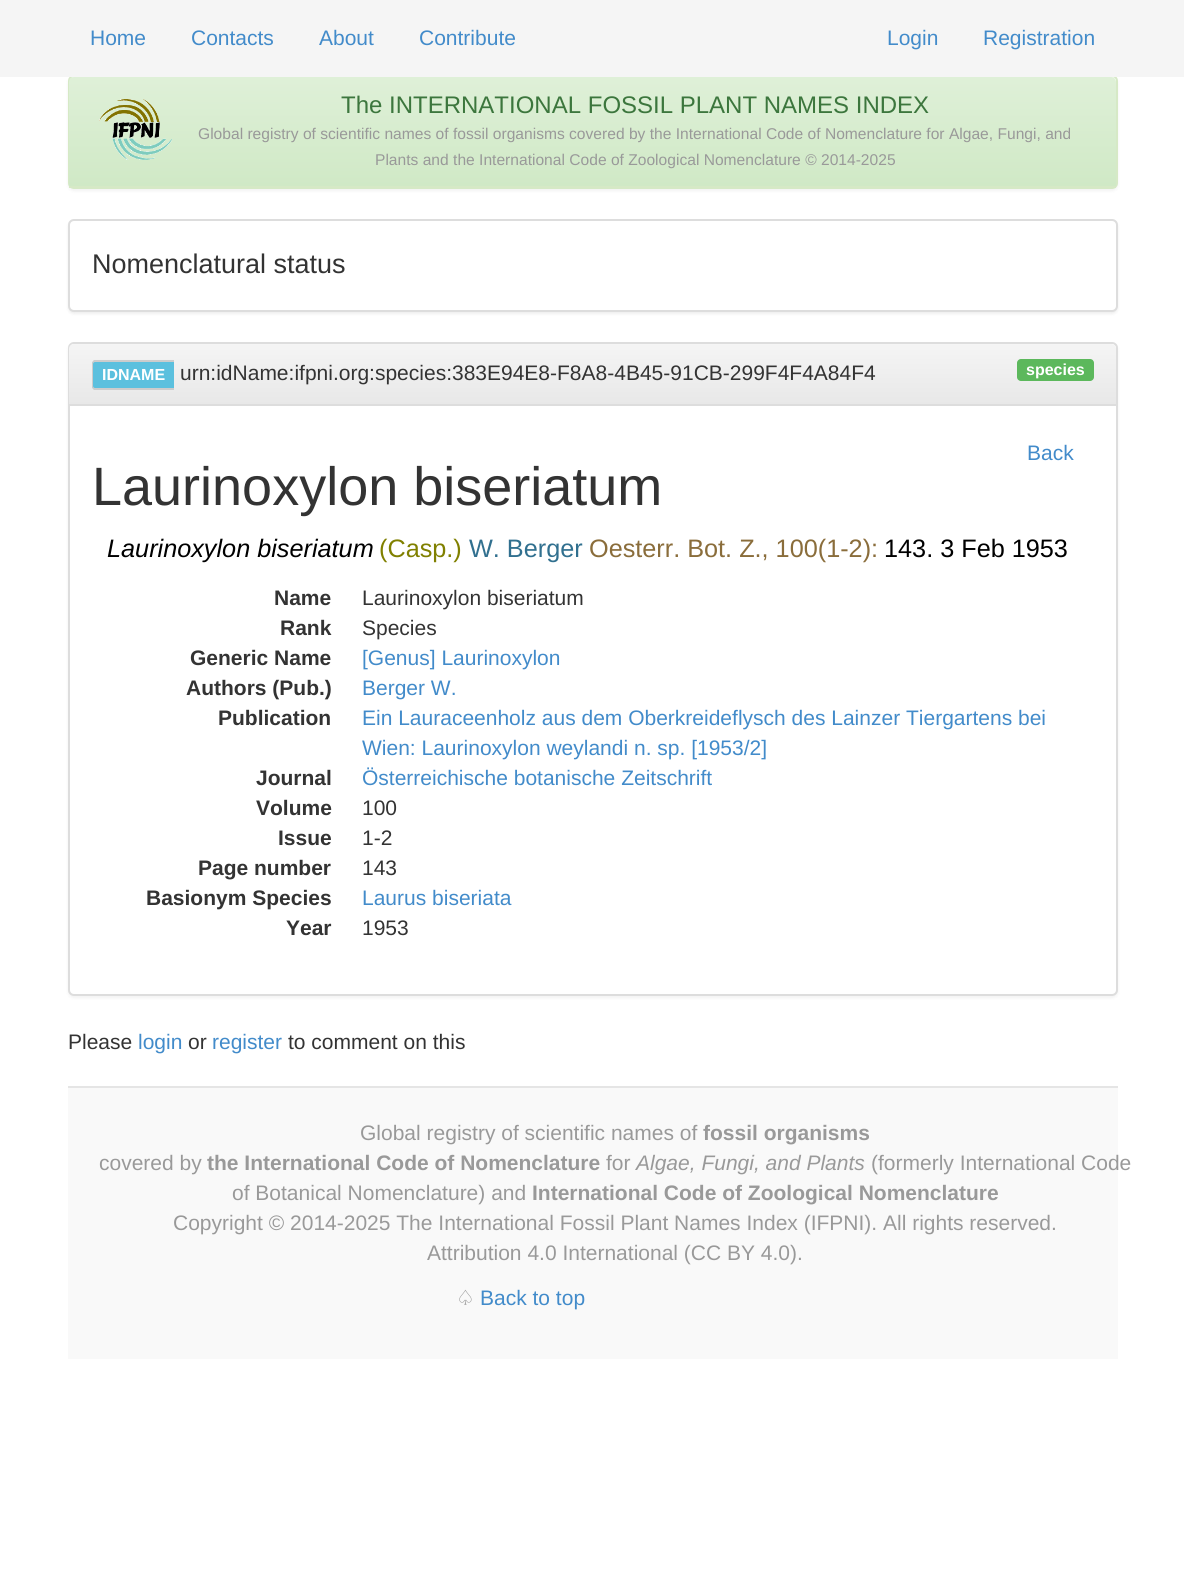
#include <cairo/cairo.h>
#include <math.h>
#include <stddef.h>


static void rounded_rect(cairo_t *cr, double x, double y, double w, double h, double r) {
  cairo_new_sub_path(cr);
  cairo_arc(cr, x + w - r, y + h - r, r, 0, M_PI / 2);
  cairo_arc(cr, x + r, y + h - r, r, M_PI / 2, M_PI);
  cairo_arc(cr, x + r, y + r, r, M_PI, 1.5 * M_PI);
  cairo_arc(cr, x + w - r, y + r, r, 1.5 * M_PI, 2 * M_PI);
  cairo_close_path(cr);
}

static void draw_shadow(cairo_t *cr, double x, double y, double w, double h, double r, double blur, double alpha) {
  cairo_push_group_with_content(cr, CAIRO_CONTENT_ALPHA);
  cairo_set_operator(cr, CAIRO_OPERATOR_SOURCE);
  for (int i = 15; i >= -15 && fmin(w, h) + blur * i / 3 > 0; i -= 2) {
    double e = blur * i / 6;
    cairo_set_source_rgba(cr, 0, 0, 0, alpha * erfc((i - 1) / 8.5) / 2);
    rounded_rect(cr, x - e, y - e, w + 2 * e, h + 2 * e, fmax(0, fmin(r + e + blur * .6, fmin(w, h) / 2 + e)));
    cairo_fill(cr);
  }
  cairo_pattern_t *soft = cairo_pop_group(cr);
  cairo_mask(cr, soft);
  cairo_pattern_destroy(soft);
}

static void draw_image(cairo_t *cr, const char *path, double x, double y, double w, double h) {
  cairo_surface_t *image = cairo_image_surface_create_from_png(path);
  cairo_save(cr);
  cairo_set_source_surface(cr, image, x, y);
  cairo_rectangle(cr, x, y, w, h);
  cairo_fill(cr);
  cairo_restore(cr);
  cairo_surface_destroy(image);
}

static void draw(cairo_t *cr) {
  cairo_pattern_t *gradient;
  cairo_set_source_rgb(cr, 1, 1, 1);
  cairo_paint(cr);
  cairo_set_source_rgb(cr, 0, 0, 0);
  draw_shadow(cr, 68, 77, 1050, 114, 6, 1.5, 0.05);
  cairo_set_source_rgb(cr, 1, 1, 1);
  rounded_rect(cr, 69, 76, 1048, 112, 5);
  cairo_fill_preserve(cr);
  cairo_set_source_rgb(cr, 214 / 255.0, 233 / 255.0, 198 / 255.0);
  cairo_stroke(cr);
  cairo_set_source_rgb(cr, 245 / 255.0, 245 / 255.0, 245 / 255.0);
  cairo_rectangle(cr, 0, 0, 1184, 77);
  cairo_fill(cr);
  gradient = cairo_pattern_create_linear(593, 76, 593, 186);
  cairo_pattern_add_color_stop_rgba(gradient, 0, 223 / 255.0, 240 / 255.0, 216 / 255.0, 1);
  cairo_pattern_add_color_stop_rgba(gradient, 1, 208 / 255.0, 233 / 255.0, 198 / 255.0, 1);
  cairo_set_source(cr, gradient);
  cairo_pattern_destroy(gradient);
  cairo_new_path(cr);
  cairo_move_to(cr, 74, 77);
  cairo_line_to(cr, 1111, 77);
  cairo_curve_to(cr, 1114, 77, 1116, 79, 1116, 82);
  cairo_line_to(cr, 1116, 186);
  cairo_line_to(cr, 69, 186);
  cairo_line_to(cr, 69, 82);
  cairo_curve_to(cr, 69, 79, 71, 77, 74, 77);
  cairo_close_path(cr);
  cairo_fill(cr);
  cairo_set_source_rgb(cr, 214 / 255.0, 233 / 255.0, 198 / 255.0);
  cairo_rectangle(cr, 69, 186, 1047, 2);
  cairo_fill(cr);
  draw_image(cr, "images/1.png", 99, 99, 73, 61);
  cairo_set_source_rgb(cr, 0, 0, 0);
  draw_shadow(cr, 68, 221, 1050, 93, 6, 1.5, 0.07);
  cairo_set_source_rgb(cr, 1, 1, 1);
  rounded_rect(cr, 69, 220, 1048, 91, 5);
  cairo_fill_preserve(cr);
  cairo_set_source_rgb(cr, 221 / 255.0, 221 / 255.0, 221 / 255.0);
  cairo_stroke(cr);
  cairo_set_source_rgb(cr, 0, 0, 0);
  draw_shadow(cr, 68, 344, 1050, 654, 6, 1.5, 0.05);
  cairo_set_source_rgb(cr, 1, 1, 1);
  rounded_rect(cr, 69, 343, 1048, 652, 5);
  cairo_fill_preserve(cr);
  cairo_set_source_rgb(cr, 221 / 255.0, 221 / 255.0, 221 / 255.0);
  cairo_stroke(cr);
  gradient = cairo_pattern_create_linear(593, 343, 593, 404);
  cairo_pattern_add_color_stop_rgba(gradient, 0, 245 / 255.0, 245 / 255.0, 245 / 255.0, 1);
  cairo_pattern_add_color_stop_rgba(gradient, 1, 232 / 255.0, 232 / 255.0, 232 / 255.0, 1);
  cairo_set_source(cr, gradient);
  cairo_pattern_destroy(gradient);
  cairo_new_path(cr);
  cairo_move_to(cr, 74, 344);
  cairo_line_to(cr, 1111, 344);
  cairo_curve_to(cr, 1114, 344, 1116, 346, 1116, 349);
  cairo_line_to(cr, 1116, 404);
  cairo_line_to(cr, 69, 404);
  cairo_line_to(cr, 69, 349);
  cairo_curve_to(cr, 69, 346, 71, 344, 74, 344);
  cairo_close_path(cr);
  cairo_fill(cr);
  cairo_set_source_rgb(cr, 221 / 255.0, 221 / 255.0, 221 / 255.0);
  cairo_rectangle(cr, 69, 404, 1047, 2);
  cairo_fill(cr);
  cairo_set_source_rgb(cr, 91 / 255.0, 192 / 255.0, 222 / 255.0);
  cairo_new_path(cr);
  cairo_move_to(cr, 96, 360);
  cairo_line_to(cr, 174, 360);
  cairo_line_to(cr, 174, 390);
  cairo_line_to(cr, 96, 390);
  cairo_curve_to(cr, 94, 390, 92, 388, 92, 386);
  cairo_line_to(cr, 92, 364);
  cairo_curve_to(cr, 92, 362, 94, 360, 96, 360);
  cairo_close_path(cr);
  cairo_fill(cr);
  cairo_set_source_rgb(cr, 204 / 255.0, 204 / 255.0, 204 / 255.0);
  cairo_set_fill_rule(cr, CAIRO_FILL_RULE_EVEN_ODD);
  cairo_new_path(cr);
  cairo_move_to(cr, 95, 360);
  cairo_line_to(cr, 174, 360);
  cairo_line_to(cr, 174, 390);
  cairo_line_to(cr, 95, 390);
  cairo_curve_to(cr, 93, 390, 92, 388, 92, 386);
  cairo_line_to(cr, 92, 364);
  cairo_curve_to(cr, 92, 362, 93, 360, 95, 360);
  cairo_close_path(cr);
  cairo_move_to(cr, 95, 362);
  cairo_line_to(cr, 174, 362);
  cairo_line_to(cr, 174, 388);
  cairo_line_to(cr, 95, 388);
  cairo_curve_to(cr, 94, 388, 93, 387, 93, 386);
  cairo_line_to(cr, 93, 364);
  cairo_curve_to(cr, 93, 363, 94, 362, 95, 362);
  cairo_close_path(cr);
  cairo_fill(cr);
  cairo_set_source_rgb(cr, 92 / 255.0, 184 / 255.0, 92 / 255.0);
  rounded_rect(cr, 1017, 359, 77, 22, 4);
  cairo_fill(cr);
  cairo_set_source_rgb(cr, 249 / 255.0, 249 / 255.0, 249 / 255.0);
  cairo_rectangle(cr, 68, 1088, 1050, 271);
  cairo_fill(cr);
  cairo_set_source_rgb(cr, 229 / 255.0, 229 / 255.0, 229 / 255.0);
  cairo_rectangle(cr, 68, 1086, 1050, 2);
  cairo_fill(cr);
  cairo_select_font_face(cr, "Liberation Sans", CAIRO_FONT_SLANT_NORMAL, CAIRO_FONT_WEIGHT_NORMAL);
  cairo_set_font_size(cr, 21);
  cairo_set_source_rgb(cr, 66 / 255.0, 139 / 255.0, 202 / 255.0);
  cairo_move_to(cr, 90, 45);
  cairo_show_text(cr, "Home");
  cairo_move_to(cr, 191, 45);
  cairo_show_text(cr, "Contacts");
  cairo_move_to(cr, 319, 45);
  cairo_show_text(cr, "About");
  cairo_move_to(cr, 419, 45);
  cairo_show_text(cr, "Contribute");
  cairo_move_to(cr, 887, 45);
  cairo_show_text(cr, "Login");
  cairo_move_to(cr, 983, 45);
  cairo_show_text(cr, "Registration");
  cairo_set_font_size(cr, 24);
  cairo_set_source_rgb(cr, 60 / 255.0, 118 / 255.0, 61 / 255.0);
  cairo_move_to(cr, 341, 113);
  cairo_show_text(cr, "The INTERNATIONAL FOSSIL PLANT NAMES INDEX");
  cairo_set_font_size(cr, 15.6);
  cairo_set_source_rgb(cr, 153 / 255.0, 153 / 255.0, 153 / 255.0);
  cairo_move_to(cr, 198, 139);
  cairo_show_text(cr, "Global registry of scientific names of fossil organisms covered by the International Code of Nomenclature for Algae, Fungi, and");
  cairo_move_to(cr, 375, 165);
  cairo_show_text(cr, "Plants and the International Code of Zoological Nomenclature © 2014-2025");
  cairo_set_font_size(cr, 27);
  cairo_set_source_rgb(cr, 51 / 255.0, 51 / 255.0, 51 / 255.0);
  cairo_move_to(cr, 92, 273);
  cairo_show_text(cr, "Nomenclatural status");
  cairo_select_font_face(cr, "Liberation Sans", CAIRO_FONT_SLANT_NORMAL, CAIRO_FONT_WEIGHT_BOLD);
  cairo_set_font_size(cr, 16);
  cairo_set_source_rgb(cr, 1, 1, 1);
  cairo_move_to(cr, 102, 380);
  cairo_show_text(cr, "IDNAME");
  cairo_select_font_face(cr, "Liberation Sans", CAIRO_FONT_SLANT_NORMAL, CAIRO_FONT_WEIGHT_NORMAL);
  cairo_set_font_size(cr, 21);
  cairo_set_source_rgb(cr, 51 / 255.0, 51 / 255.0, 51 / 255.0);
  cairo_move_to(cr, 180, 380);
  cairo_show_text(cr, "urn:idName:ifpni.org:species:383E94E8-F8A8-4B45-91CB-299F4F4A84F4");
  cairo_select_font_face(cr, "Liberation Sans", CAIRO_FONT_SLANT_NORMAL, CAIRO_FONT_WEIGHT_BOLD);
  cairo_set_font_size(cr, 16);
  cairo_set_source_rgb(cr, 1, 1, 1);
  cairo_move_to(cr, 1026, 375);
  cairo_show_text(cr, "species");
  cairo_select_font_face(cr, "Liberation Sans", CAIRO_FONT_SLANT_NORMAL, CAIRO_FONT_WEIGHT_NORMAL);
  cairo_set_font_size(cr, 21);
  cairo_set_source_rgb(cr, 66 / 255.0, 139 / 255.0, 202 / 255.0);
  cairo_move_to(cr, 1027, 460);
  cairo_show_text(cr, "Back");
  cairo_set_font_size(cr, 54);
  cairo_set_source_rgb(cr, 51 / 255.0, 51 / 255.0, 51 / 255.0);
  cairo_move_to(cr, 92, 505);
  cairo_show_text(cr, "Laurinoxylon biseriatum");
  cairo_select_font_face(cr, "Liberation Sans", CAIRO_FONT_SLANT_ITALIC, CAIRO_FONT_WEIGHT_NORMAL);
  cairo_set_font_size(cr, 25.25);
  cairo_set_source_rgb(cr, 0, 0, 0);
  cairo_move_to(cr, 107, 557);
  cairo_show_text(cr, "Laurinoxylon biseriatum");
  cairo_select_font_face(cr, "Liberation Sans", CAIRO_FONT_SLANT_NORMAL, CAIRO_FONT_WEIGHT_NORMAL);
  cairo_set_source_rgb(cr, 128 / 255.0, 128 / 255.0, 0);
  cairo_move_to(cr, 379, 557);
  cairo_show_text(cr, "(Casp.)");
  cairo_set_source_rgb(cr, 49 / 255.0, 112 / 255.0, 143 / 255.0);
  cairo_move_to(cr, 469, 557);
  cairo_show_text(cr, "W. Berger");
  cairo_set_source_rgb(cr, 138 / 255.0, 109 / 255.0, 59 / 255.0);
  cairo_move_to(cr, 589, 557);
  cairo_show_text(cr, "Oesterr. Bot. Z., 100(1-2):");
  cairo_set_source_rgb(cr, 0, 0, 0);
  cairo_move_to(cr, 884, 557);
  cairo_show_text(cr, "143. 3 Feb 1953");
  cairo_select_font_face(cr, "Liberation Sans", CAIRO_FONT_SLANT_NORMAL, CAIRO_FONT_WEIGHT_BOLD);
  cairo_set_font_size(cr, 21);
  cairo_set_source_rgb(cr, 51 / 255.0, 51 / 255.0, 51 / 255.0);
  cairo_move_to(cr, 274, 605);
  cairo_show_text(cr, "Name");
  cairo_select_font_face(cr, "Liberation Sans", CAIRO_FONT_SLANT_NORMAL, CAIRO_FONT_WEIGHT_NORMAL);
  cairo_move_to(cr, 362, 605);
  cairo_show_text(cr, "Laurinoxylon biseriatum");
  cairo_select_font_face(cr, "Liberation Sans", CAIRO_FONT_SLANT_NORMAL, CAIRO_FONT_WEIGHT_BOLD);
  cairo_move_to(cr, 280, 635);
  cairo_show_text(cr, "Rank");
  cairo_select_font_face(cr, "Liberation Sans", CAIRO_FONT_SLANT_NORMAL, CAIRO_FONT_WEIGHT_NORMAL);
  cairo_move_to(cr, 362, 635);
  cairo_show_text(cr, "Species");
  cairo_select_font_face(cr, "Liberation Sans", CAIRO_FONT_SLANT_NORMAL, CAIRO_FONT_WEIGHT_BOLD);
  cairo_move_to(cr, 190, 665);
  cairo_show_text(cr, "Generic Name");
  cairo_select_font_face(cr, "Liberation Sans", CAIRO_FONT_SLANT_NORMAL, CAIRO_FONT_WEIGHT_NORMAL);
  cairo_set_source_rgb(cr, 66 / 255.0, 139 / 255.0, 202 / 255.0);
  cairo_move_to(cr, 362, 665);
  cairo_show_text(cr, "[Genus] Laurinoxylon");
  cairo_select_font_face(cr, "Liberation Sans", CAIRO_FONT_SLANT_NORMAL, CAIRO_FONT_WEIGHT_BOLD);
  cairo_set_source_rgb(cr, 51 / 255.0, 51 / 255.0, 51 / 255.0);
  cairo_move_to(cr, 186, 695);
  cairo_show_text(cr, "Authors (Pub.)");
  cairo_select_font_face(cr, "Liberation Sans", CAIRO_FONT_SLANT_NORMAL, CAIRO_FONT_WEIGHT_NORMAL);
  cairo_set_source_rgb(cr, 66 / 255.0, 139 / 255.0, 202 / 255.0);
  cairo_move_to(cr, 362, 695);
  cairo_show_text(cr, "Berger W.");
  cairo_select_font_face(cr, "Liberation Sans", CAIRO_FONT_SLANT_NORMAL, CAIRO_FONT_WEIGHT_BOLD);
  cairo_set_source_rgb(cr, 51 / 255.0, 51 / 255.0, 51 / 255.0);
  cairo_move_to(cr, 218, 725);
  cairo_show_text(cr, "Publication");
  cairo_select_font_face(cr, "Liberation Sans", CAIRO_FONT_SLANT_NORMAL, CAIRO_FONT_WEIGHT_NORMAL);
  cairo_set_source_rgb(cr, 66 / 255.0, 139 / 255.0, 202 / 255.0);
  cairo_move_to(cr, 362, 725);
  cairo_show_text(cr, "Ein Lauraceenholz aus dem Oberkreideflysch des Lainzer Tiergartens bei");
  cairo_move_to(cr, 362, 755);
  cairo_show_text(cr, "Wien: Laurinoxylon weylandi n. sp. [1953/2]");
  cairo_select_font_face(cr, "Liberation Sans", CAIRO_FONT_SLANT_NORMAL, CAIRO_FONT_WEIGHT_BOLD);
  cairo_set_source_rgb(cr, 51 / 255.0, 51 / 255.0, 51 / 255.0);
  cairo_move_to(cr, 256, 785);
  cairo_show_text(cr, "Journal");
  cairo_select_font_face(cr, "Liberation Sans", CAIRO_FONT_SLANT_NORMAL, CAIRO_FONT_WEIGHT_NORMAL);
  cairo_set_source_rgb(cr, 66 / 255.0, 139 / 255.0, 202 / 255.0);
  cairo_move_to(cr, 362, 785);
  cairo_show_text(cr, "Österreichische botanische Zeitschrift");
  cairo_select_font_face(cr, "Liberation Sans", CAIRO_FONT_SLANT_NORMAL, CAIRO_FONT_WEIGHT_BOLD);
  cairo_set_source_rgb(cr, 51 / 255.0, 51 / 255.0, 51 / 255.0);
  cairo_move_to(cr, 256, 815);
  cairo_show_text(cr, "Volume");
  cairo_select_font_face(cr, "Liberation Sans", CAIRO_FONT_SLANT_NORMAL, CAIRO_FONT_WEIGHT_NORMAL);
  cairo_move_to(cr, 362, 815);
  cairo_show_text(cr, "100");
  cairo_select_font_face(cr, "Liberation Sans", CAIRO_FONT_SLANT_NORMAL, CAIRO_FONT_WEIGHT_BOLD);
  cairo_move_to(cr, 278, 845);
  cairo_show_text(cr, "Issue");
  cairo_select_font_face(cr, "Liberation Sans", CAIRO_FONT_SLANT_NORMAL, CAIRO_FONT_WEIGHT_NORMAL);
  cairo_move_to(cr, 362, 845);
  cairo_show_text(cr, "1-2");
  cairo_select_font_face(cr, "Liberation Sans", CAIRO_FONT_SLANT_NORMAL, CAIRO_FONT_WEIGHT_BOLD);
  cairo_move_to(cr, 198, 875);
  cairo_show_text(cr, "Page number");
  cairo_select_font_face(cr, "Liberation Sans", CAIRO_FONT_SLANT_NORMAL, CAIRO_FONT_WEIGHT_NORMAL);
  cairo_move_to(cr, 362, 875);
  cairo_show_text(cr, "143");
  cairo_select_font_face(cr, "Liberation Sans", CAIRO_FONT_SLANT_NORMAL, CAIRO_FONT_WEIGHT_BOLD);
  cairo_move_to(cr, 146, 905);
  cairo_show_text(cr, "Вasionym Species");
  cairo_select_font_face(cr, "Liberation Sans", CAIRO_FONT_SLANT_NORMAL, CAIRO_FONT_WEIGHT_NORMAL);
  cairo_set_source_rgb(cr, 66 / 255.0, 139 / 255.0, 202 / 255.0);
  cairo_move_to(cr, 362, 905);
  cairo_show_text(cr, "Laurus biseriata");
  cairo_select_font_face(cr, "Liberation Sans", CAIRO_FONT_SLANT_NORMAL, CAIRO_FONT_WEIGHT_BOLD);
  cairo_set_source_rgb(cr, 51 / 255.0, 51 / 255.0, 51 / 255.0);
  cairo_move_to(cr, 286, 935);
  cairo_show_text(cr, "Year");
  cairo_select_font_face(cr, "Liberation Sans", CAIRO_FONT_SLANT_NORMAL, CAIRO_FONT_WEIGHT_NORMAL);
  cairo_move_to(cr, 362, 935);
  cairo_show_text(cr, "1953");
  cairo_move_to(cr, 68, 1049);
  cairo_show_text(cr, "Please");
  cairo_set_source_rgb(cr, 66 / 255.0, 139 / 255.0, 202 / 255.0);
  cairo_move_to(cr, 138, 1049);
  cairo_show_text(cr, "login");
  cairo_set_source_rgb(cr, 51 / 255.0, 51 / 255.0, 51 / 255.0);
  cairo_move_to(cr, 188, 1049);
  cairo_show_text(cr, "or");
  cairo_set_source_rgb(cr, 66 / 255.0, 139 / 255.0, 202 / 255.0);
  cairo_move_to(cr, 212, 1049);
  cairo_show_text(cr, "register");
  cairo_set_source_rgb(cr, 51 / 255.0, 51 / 255.0, 51 / 255.0);
  cairo_move_to(cr, 288, 1049);
  cairo_show_text(cr, "to comment on this");
  cairo_set_source_rgb(cr, 153 / 255.0, 153 / 255.0, 153 / 255.0);
  cairo_move_to(cr, 360, 1140);
  cairo_show_text(cr, "Global registry of scientific names of");
  cairo_select_font_face(cr, "Liberation Sans", CAIRO_FONT_SLANT_NORMAL, CAIRO_FONT_WEIGHT_BOLD);
  cairo_move_to(cr, 703, 1140);
  cairo_show_text(cr, "fossil organisms");
  cairo_select_font_face(cr, "Liberation Sans", CAIRO_FONT_SLANT_NORMAL, CAIRO_FONT_WEIGHT_NORMAL);
  cairo_move_to(cr, 99, 1170);
  cairo_show_text(cr, "covered by");
  cairo_select_font_face(cr, "Liberation Sans", CAIRO_FONT_SLANT_NORMAL, CAIRO_FONT_WEIGHT_BOLD);
  cairo_move_to(cr, 207, 1170);
  cairo_show_text(cr, "the International Code of Nomenclature");
  cairo_select_font_face(cr, "Liberation Sans", CAIRO_FONT_SLANT_NORMAL, CAIRO_FONT_WEIGHT_NORMAL);
  cairo_move_to(cr, 606, 1170);
  cairo_show_text(cr, "for");
  cairo_select_font_face(cr, "Liberation Sans", CAIRO_FONT_SLANT_ITALIC, CAIRO_FONT_WEIGHT_NORMAL);
  cairo_move_to(cr, 636, 1170);
  cairo_show_text(cr, "Algae, Fungi, and Plants");
  cairo_select_font_face(cr, "Liberation Sans", CAIRO_FONT_SLANT_NORMAL, CAIRO_FONT_WEIGHT_NORMAL);
  cairo_move_to(cr, 871, 1170);
  cairo_show_text(cr, "(formerly International Code");
  cairo_move_to(cr, 232, 1200);
  cairo_show_text(cr, "of Botanical Nomenclature) and");
  cairo_select_font_face(cr, "Liberation Sans", CAIRO_FONT_SLANT_NORMAL, CAIRO_FONT_WEIGHT_BOLD);
  cairo_move_to(cr, 532, 1200);
  cairo_show_text(cr, "International Code of Zoological Nomenclature");
  cairo_select_font_face(cr, "Liberation Sans", CAIRO_FONT_SLANT_NORMAL, CAIRO_FONT_WEIGHT_NORMAL);
  cairo_move_to(cr, 173, 1230);
  cairo_show_text(cr, "Copyright © 2014-2025 The International Fossil Plant Names Index (IFPNI). All rights reserved.");
  cairo_move_to(cr, 427, 1260);
  cairo_show_text(cr, "Attribution 4.0 International (CC BY 4.0).");
  cairo_select_font_face(cr, "DejaVu Sans", CAIRO_FONT_SLANT_NORMAL, CAIRO_FONT_WEIGHT_NORMAL);
  cairo_move_to(cr, 456, 1305);
  cairo_show_text(cr, "♤");
  cairo_select_font_face(cr, "Liberation Sans", CAIRO_FONT_SLANT_NORMAL, CAIRO_FONT_WEIGHT_NORMAL);
  cairo_set_source_rgb(cr, 66 / 255.0, 139 / 255.0, 202 / 255.0);
  cairo_move_to(cr, 480, 1305);
  cairo_show_text(cr, "Back to top");
}

int main(void) {
  cairo_surface_t *surface = cairo_image_surface_create(CAIRO_FORMAT_RGB24, 1184, 1573);
  cairo_t *cr = cairo_create(surface);
  cairo_font_options_t *options = cairo_font_options_create();
  cairo_font_options_set_hint_metrics(options, CAIRO_HINT_METRICS_OFF);
  cairo_font_options_set_hint_style(options, CAIRO_HINT_STYLE_NONE);
  cairo_set_font_options(cr, options);
  cairo_set_miter_limit(cr, 4);
  draw(cr);
  cairo_surface_write_to_png(surface, "out.png");
  cairo_font_options_destroy(options);
  cairo_destroy(cr);
  cairo_surface_destroy(surface);
  return 0;
}
